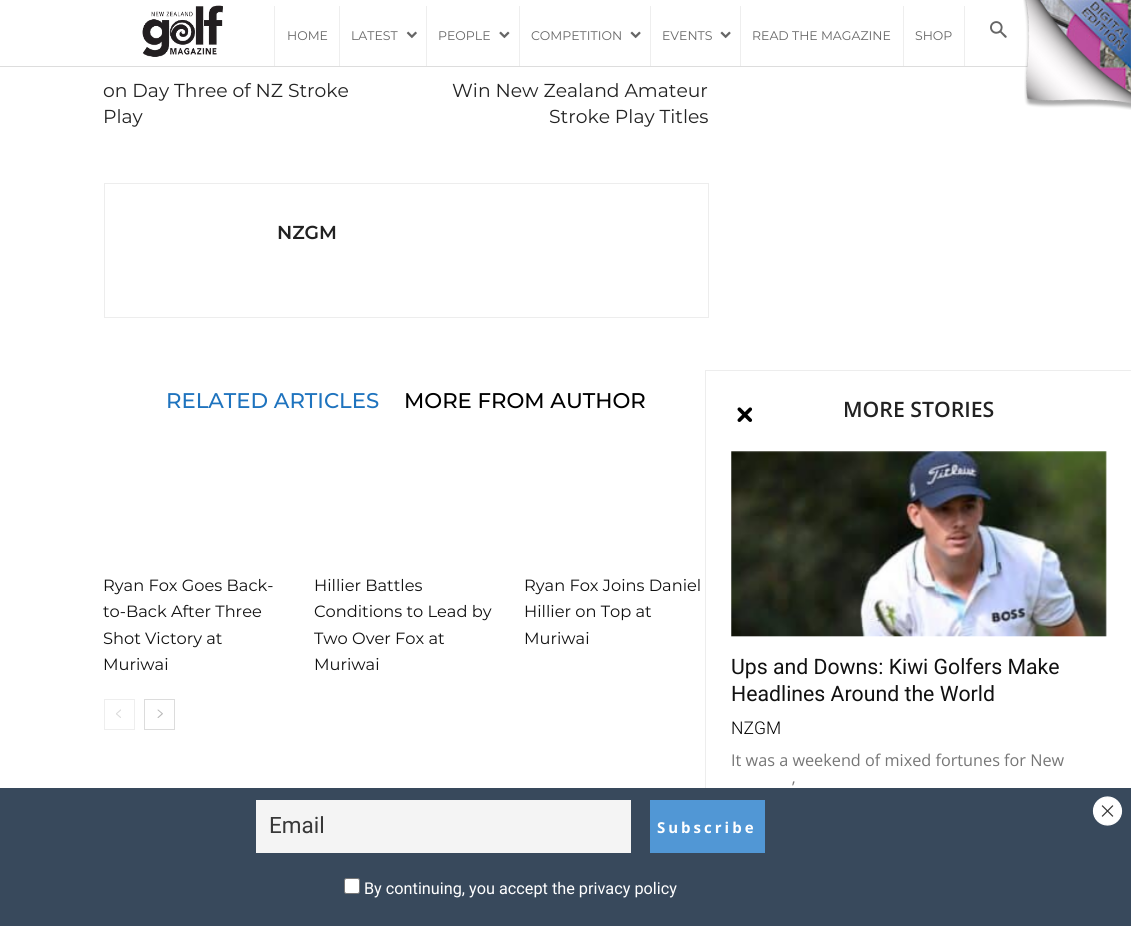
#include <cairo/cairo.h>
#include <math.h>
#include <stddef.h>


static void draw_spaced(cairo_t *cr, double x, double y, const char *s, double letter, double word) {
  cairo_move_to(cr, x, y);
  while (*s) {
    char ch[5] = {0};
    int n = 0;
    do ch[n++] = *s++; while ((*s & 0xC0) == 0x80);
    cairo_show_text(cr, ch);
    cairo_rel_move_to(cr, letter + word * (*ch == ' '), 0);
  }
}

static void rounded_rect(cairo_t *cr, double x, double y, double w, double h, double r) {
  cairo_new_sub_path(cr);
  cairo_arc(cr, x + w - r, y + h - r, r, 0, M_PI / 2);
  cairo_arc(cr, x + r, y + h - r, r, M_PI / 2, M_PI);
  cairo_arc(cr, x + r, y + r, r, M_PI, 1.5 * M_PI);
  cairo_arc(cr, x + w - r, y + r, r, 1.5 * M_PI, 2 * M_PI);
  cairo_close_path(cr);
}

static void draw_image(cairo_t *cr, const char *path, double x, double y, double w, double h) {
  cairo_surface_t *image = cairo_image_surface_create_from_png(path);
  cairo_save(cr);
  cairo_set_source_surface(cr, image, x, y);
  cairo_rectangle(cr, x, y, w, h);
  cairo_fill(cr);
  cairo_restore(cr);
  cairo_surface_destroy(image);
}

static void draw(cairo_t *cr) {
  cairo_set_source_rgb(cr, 1, 1, 1);
  cairo_paint(cr);
  cairo_set_source_rgb(cr, 221 / 255.0, 221 / 255.0, 221 / 255.0);
  cairo_rectangle(cr, 0, 66, 1028, 1);
  cairo_fill(cr);
  draw_image(cr, "images/1.png", 142, 5, 81, 52);
  cairo_set_source_rgb(cr, 238 / 255.0, 238 / 255.0, 238 / 255.0);
  cairo_rectangle(cr, 339, 6, 1, 60);
  cairo_fill(cr);
  cairo_rectangle(cr, 274, 6, 1, 60);
  cairo_fill(cr);
  cairo_rectangle(cr, 426, 6, 1, 60);
  cairo_fill(cr);
  draw_image(cr, "images/2.png", 406, 31, 11, 8);
  cairo_rectangle(cr, 519, 6, 1, 60);
  cairo_fill(cr);
  draw_image(cr, "images/3.png", 499, 31, 11, 8);
  cairo_rectangle(cr, 650, 6, 1, 60);
  cairo_fill(cr);
  draw_image(cr, "images/4.png", 630, 31, 11, 8);
  cairo_rectangle(cr, 740, 6, 1, 60);
  cairo_fill(cr);
  draw_image(cr, "images/4.png", 720, 31, 11, 8);
  cairo_rectangle(cr, 903, 6, 1, 60);
  cairo_fill(cr);
  cairo_rectangle(cr, 964, 6, 1, 60);
  cairo_fill(cr);
  draw_image(cr, "images/5.png", 990, 21, 17, 17);
  cairo_rectangle(cr, 104.5, 183.5, 604, 134);
  cairo_set_source_rgb(cr, 237 / 255.0, 237 / 255.0, 237 / 255.0);
  cairo_set_line_width(cr, 1);
  cairo_stroke(cr);
  cairo_rectangle(cr, 104.5, 699.5, 30, 30);
  cairo_set_source_rgb(cr, 238 / 255.0, 238 / 255.0, 238 / 255.0);
  cairo_stroke(cr);
  draw_image(cr, "images/6.png", 116, 709, 5, 9);
  cairo_rectangle(cr, 144.5, 699.5, 30, 30);
  cairo_set_source_rgb(cr, 220 / 255.0, 220 / 255.0, 220 / 255.0);
  cairo_stroke(cr);
  draw_image(cr, "images/7.png", 157, 709, 6, 9);
  draw_image(cr, "images/9.png", 1039, 0, 92, 94);
  draw_image(cr, "images/8.png", 1023, 0, 108, 110);
  cairo_set_source_rgb(cr, 237 / 255.0, 237 / 255.0, 237 / 255.0);
  cairo_rectangle(cr, 705, 370, 426, 1);
  cairo_fill(cr);
  cairo_rectangle(cr, 705, 370, 1, 418);
  cairo_fill(cr);
  draw_image(cr, "images/10.png", 737, 407, 16, 15);
  draw_image(cr, "images/11.png", 731, 451, 376, 186);
  cairo_set_source_rgb(cr, 56 / 255.0, 73 / 255.0, 92 / 255.0);
  cairo_rectangle(cr, 0, 788, 1131, 138);
  cairo_fill(cr);
  cairo_set_source_rgb(cr, 1, 1, 1);
  cairo_arc(cr, 1107.5, 811, 14, 0, 2 * M_PI);
  cairo_fill_preserve(cr);
  cairo_set_line_width(cr, 1.2);
  cairo_stroke(cr);
  cairo_new_path(cr);
  cairo_move_to(cr, 1112.5, 806);
  cairo_line_to(cr, 1102.5, 816);
  cairo_move_to(cr, 1112.5, 816);
  cairo_line_to(cr, 1102.5, 806);
  cairo_set_source_rgb(cr, 52 / 255.0, 52 / 255.0, 52 / 255.0);
  cairo_set_line_cap(cr, CAIRO_LINE_CAP_SQUARE);
  cairo_stroke(cr);
  cairo_set_source_rgb(cr, 244 / 255.0, 244 / 255.0, 244 / 255.0);
  cairo_rectangle(cr, 256, 800, 375, 53);
  cairo_fill(cr);
  cairo_set_source_rgb(cr, 81 / 255.0, 151 / 255.0, 213 / 255.0);
  cairo_rectangle(cr, 650, 800, 115, 53);
  cairo_fill(cr);
  cairo_set_source_rgb(cr, 1, 1, 1);
  rounded_rect(cr, 344.5, 878.5, 15, 15, 2);
  cairo_fill_preserve(cr);
  cairo_set_source_rgb(cr, 118 / 255.0, 118 / 255.0, 118 / 255.0);
  cairo_set_line_width(cr, 1);
  cairo_set_line_cap(cr, CAIRO_LINE_CAP_BUTT);
  cairo_stroke(cr);
  cairo_select_font_face(cr, "Montserrat", CAIRO_FONT_SLANT_NORMAL, CAIRO_FONT_WEIGHT_NORMAL);
  cairo_set_font_size(cr, 12.5);
  cairo_set_source_rgb(cr, 102 / 255.0, 102 / 255.0, 102 / 255.0);
  cairo_move_to(cr, 287, 40);
  cairo_show_text(cr, "HOME");
  cairo_move_to(cr, 351, 40);
  cairo_show_text(cr, "LATEST");
  cairo_move_to(cr, 438, 40);
  cairo_show_text(cr, "PEOPLE");
  cairo_move_to(cr, 531, 40);
  cairo_show_text(cr, "COMPETITION");
  cairo_move_to(cr, 662, 40);
  cairo_show_text(cr, "EVENTS");
  cairo_move_to(cr, 752, 40);
  cairo_show_text(cr, "READ THE MAGAZINE");
  cairo_move_to(cr, 915, 40);
  cairo_show_text(cr, "SHOP");
  cairo_set_font_size(cr, 18.75);
  cairo_set_source_rgb(cr, 34 / 255.0, 34 / 255.0, 34 / 255.0);
  cairo_move_to(cr, 103, 97);
  cairo_show_text(cr, "on Day Three of NZ Stroke");
  cairo_move_to(cr, 103, 123);
  cairo_show_text(cr, "Play");
  cairo_move_to(cr, 452, 97);
  cairo_show_text(cr, "Win New Zealand Amateur");
  cairo_move_to(cr, 549, 123);
  cairo_show_text(cr, "Stroke Play Titles");
  cairo_select_font_face(cr, "Montserrat SemiBold", CAIRO_FONT_SLANT_NORMAL, CAIRO_FONT_WEIGHT_NORMAL);
  cairo_move_to(cr, 277, 239);
  cairo_show_text(cr, "NZGM");
  cairo_select_font_face(cr, "Montserrat Medium", CAIRO_FONT_SLANT_NORMAL, CAIRO_FONT_WEIGHT_NORMAL);
  cairo_set_font_size(cr, 21.25);
  cairo_set_source_rgb(cr, 30 / 255.0, 115 / 255.0, 190 / 255.0);
  cairo_move_to(cr, 166, 408);
  cairo_show_text(cr, "RELATED ARTICLES");
  cairo_set_source_rgb(cr, 0, 0, 0);
  cairo_move_to(cr, 404, 408);
  cairo_show_text(cr, "MORE FROM AUTHOR");
  cairo_select_font_face(cr, "Montserrat", CAIRO_FONT_SLANT_NORMAL, CAIRO_FONT_WEIGHT_NORMAL);
  cairo_set_font_size(cr, 16.25);
  cairo_set_source_rgb(cr, 17 / 255.0, 17 / 255.0, 17 / 255.0);
  cairo_move_to(cr, 103, 591);
  cairo_show_text(cr, "Ryan Fox Goes Back-");
  cairo_move_to(cr, 103, 617);
  cairo_show_text(cr, "to-Back After Three");
  cairo_move_to(cr, 103, 644);
  cairo_show_text(cr, "Shot Victory at");
  cairo_move_to(cr, 103, 670);
  cairo_show_text(cr, "Muriwai");
  cairo_move_to(cr, 314, 591);
  cairo_show_text(cr, "Hillier Battles");
  cairo_move_to(cr, 314, 617);
  cairo_show_text(cr, "Conditions to Lead by");
  cairo_move_to(cr, 314, 644);
  cairo_show_text(cr, "Two Over Fox at");
  cairo_move_to(cr, 314, 670);
  cairo_show_text(cr, "Muriwai");
  cairo_move_to(cr, 524, 591);
  cairo_show_text(cr, "Ryan Fox Joins Daniel");
  cairo_move_to(cr, 524, 617);
  cairo_show_text(cr, "Hillier on Top at");
  cairo_move_to(cr, 524, 644);
  cairo_show_text(cr, "Muriwai");
  cairo_select_font_face(cr, "Open Sans SemiBold", CAIRO_FONT_SLANT_NORMAL, CAIRO_FONT_WEIGHT_NORMAL);
  cairo_set_font_size(cr, 21.25);
  cairo_set_source_rgb(cr, 34 / 255.0, 34 / 255.0, 34 / 255.0);
  cairo_move_to(cr, 843, 417);
  cairo_show_text(cr, "MORE STORIES");
  cairo_select_font_face(cr, "Roboto", CAIRO_FONT_SLANT_NORMAL, CAIRO_FONT_WEIGHT_NORMAL);
  cairo_set_source_rgb(cr, 17 / 255.0, 17 / 255.0, 17 / 255.0);
  cairo_move_to(cr, 731, 674);
  cairo_show_text(cr, "Ups and Downs: Kiwi Golfers Make");
  cairo_move_to(cr, 731, 701);
  cairo_show_text(cr, "Headlines Around the World");
  cairo_select_font_face(cr, "Roboto Light", CAIRO_FONT_SLANT_NORMAL, CAIRO_FONT_WEIGHT_NORMAL);
  cairo_set_font_size(cr, 17.5);
  cairo_set_source_rgb(cr, 0, 0, 0);
  cairo_move_to(cr, 731, 734);
  cairo_show_text(cr, "NZGM");
  cairo_select_font_face(cr, "Open Sans", CAIRO_FONT_SLANT_NORMAL, CAIRO_FONT_WEIGHT_NORMAL);
  cairo_set_font_size(cr, 16.25);
  cairo_set_source_rgb(cr, 118 / 255.0, 118 / 255.0, 118 / 255.0);
  cairo_move_to(cr, 731, 766);
  cairo_show_text(cr, "It was a weekend of mixed fortunes for New");
  cairo_move_to(cr, 792, 793);
  cairo_show_text(cr, "’");
  cairo_select_font_face(cr, "Roboto", CAIRO_FONT_SLANT_NORMAL, CAIRO_FONT_WEIGHT_NORMAL);
  cairo_set_font_size(cr, 22.5);
  cairo_set_source_rgb(cr, 56 / 255.0, 56 / 255.0, 56 / 255.0);
  cairo_move_to(cr, 269, 833);
  cairo_show_text(cr, "Email");
  cairo_select_font_face(cr, "Open Sans", CAIRO_FONT_SLANT_NORMAL, CAIRO_FONT_WEIGHT_BOLD);
  cairo_set_font_size(cr, 15);
  cairo_set_source_rgb(cr, 1, 1, 1);
  draw_spaced(cr, 657, 833, "Subscribe", 3, 0);
  cairo_select_font_face(cr, "Roboto", CAIRO_FONT_SLANT_NORMAL, CAIRO_FONT_WEIGHT_NORMAL);
  cairo_set_font_size(cr, 16.25);
  cairo_move_to(cr, 364, 894);
  cairo_show_text(cr, "By continuing, you accept the privacy policy");
}

int main(void) {
  cairo_surface_t *surface = cairo_image_surface_create(CAIRO_FORMAT_RGB24, 1131, 926);
  cairo_t *cr = cairo_create(surface);
  cairo_font_options_t *options = cairo_font_options_create();
  cairo_font_options_set_hint_metrics(options, CAIRO_HINT_METRICS_OFF);
  cairo_font_options_set_hint_style(options, CAIRO_HINT_STYLE_NONE);
  cairo_set_font_options(cr, options);
  cairo_set_miter_limit(cr, 4);
  draw(cr);
  cairo_surface_write_to_png(surface, "out.png");
  cairo_font_options_destroy(options);
  cairo_destroy(cr);
  cairo_surface_destroy(surface);
  return 0;
}
